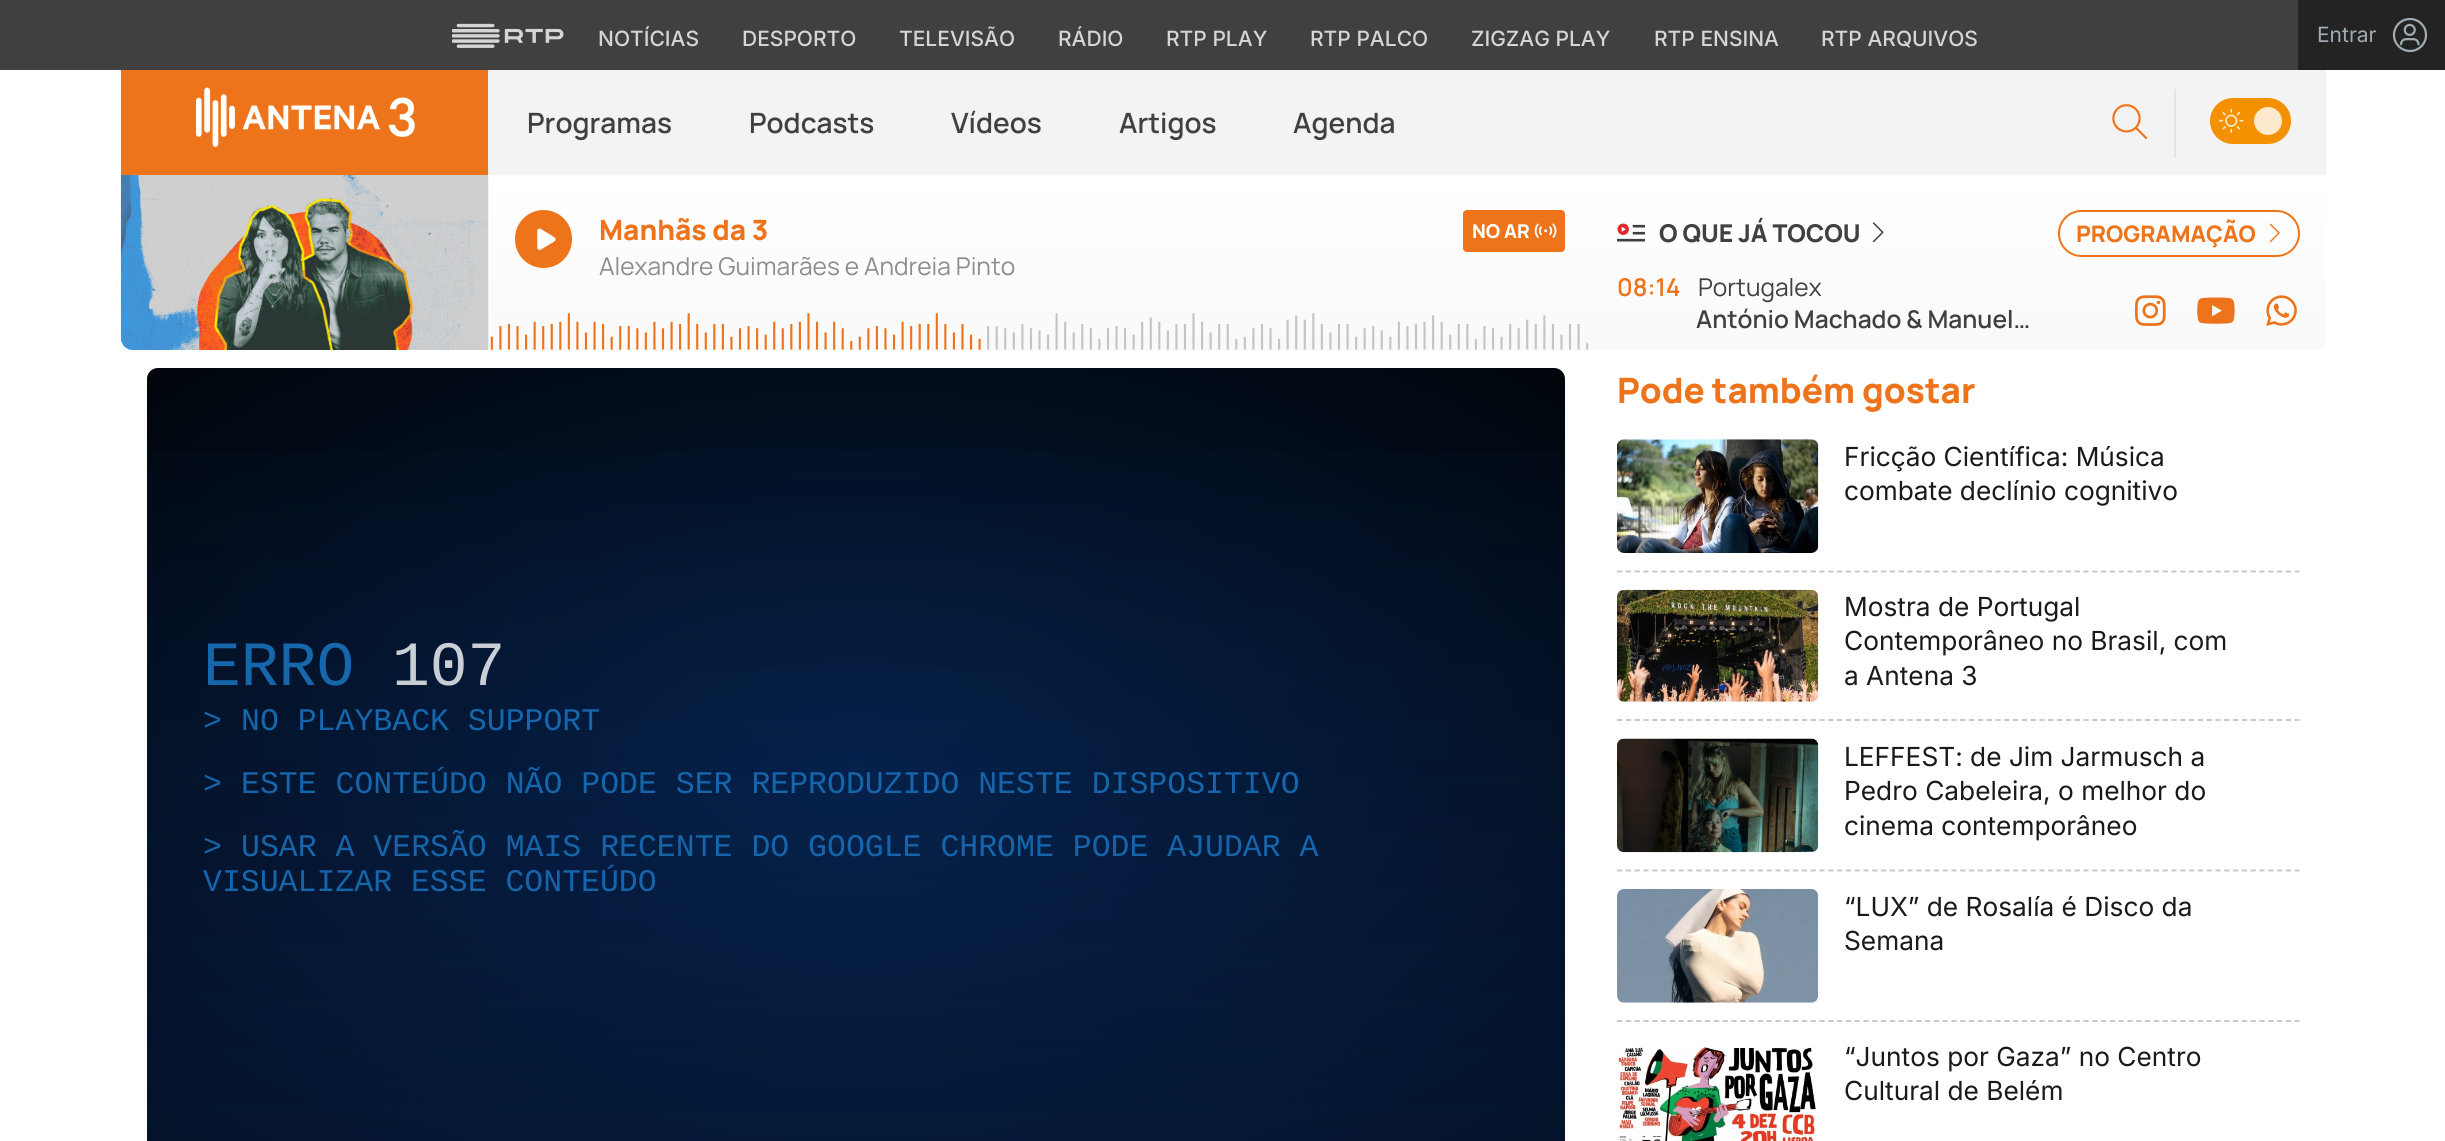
#include <cairo/cairo.h>
#include <math.h>
#include <stddef.h>


static void rounded_rect(cairo_t *cr, double x, double y, double w, double h, double r) {
  cairo_new_sub_path(cr);
  cairo_arc(cr, x + w - r, y + h - r, r, 0, M_PI / 2);
  cairo_arc(cr, x + r, y + h - r, r, M_PI / 2, M_PI);
  cairo_arc(cr, x + r, y + r, r, M_PI, 1.5 * M_PI);
  cairo_arc(cr, x + w - r, y + r, r, 1.5 * M_PI, 2 * M_PI);
  cairo_close_path(cr);
}

static void draw_image(cairo_t *cr, const char *path, double x, double y, double w, double h) {
  cairo_surface_t *image = cairo_image_surface_create_from_png(path);
  cairo_save(cr);
  cairo_set_source_surface(cr, image, x, y);
  cairo_rectangle(cr, x, y, w, h);
  cairo_fill(cr);
  cairo_restore(cr);
  cairo_surface_destroy(image);
}

static void draw(cairo_t *cr) {
  cairo_pattern_t *gradient;
  cairo_set_source_rgb(cr, 1, 1, 1);
  cairo_paint(cr);
  cairo_set_source_rgb(cr, 64 / 255.0, 64 / 255.0, 64 / 255.0);
  cairo_rectangle(cr, 0, 0, 2298, 70);
  cairo_fill(cr);
  draw_image(cr, "images/1.png", 452, 23, 112, 25);
  cairo_set_source_rgb(cr, 35 / 255.0, 35 / 255.0, 35 / 255.0);
  cairo_rectangle(cr, 2298, 0, 147, 70);
  cairo_fill(cr);
  draw_image(cr, "images/2.png", 2392, 18, 35, 35);
  cairo_set_source_rgb(cr, 243 / 255.0, 243 / 255.0, 243 / 255.0);
  cairo_rectangle(cr, 488, 70, 1838, 105);
  cairo_fill(cr);
  cairo_set_source_rgb(cr, 238 / 255.0, 116 / 255.0, 27 / 255.0);
  cairo_rectangle(cr, 121, 70, 367, 105);
  cairo_fill(cr);
  draw_image(cr, "images/3.png", 196, 87, 219, 60);
  draw_image(cr, "images/4.png", 2112, 104, 36, 36);
  cairo_set_source_rgb(cr, 229 / 255.0, 229 / 255.0, 229 / 255.0);
  cairo_rectangle(cr, 2174, 89, 2, 69);
  cairo_fill(cr);
  cairo_set_source_rgb(cr, 243 / 255.0, 145 / 255.0, 0);
  rounded_rect(cr, 2210, 98, 81, 46, 23);
  cairo_fill(cr);
  draw_image(cr, "images/5.png", 2219, 109, 25, 24);
  cairo_set_source_rgb(cr, 253 / 255.0, 233 / 255.0, 204 / 255.0);
  cairo_arc(cr, 2268, 121, 14, 0, 2 * M_PI);
  cairo_fill(cr);
  gradient = cairo_pattern_create_linear(1223, 525, 1223, 175);
  cairo_pattern_add_color_stop_rgba(gradient, 0, 243 / 255.0, 243 / 255.0, 243 / 255.0, 1);
  cairo_pattern_add_color_stop_rgba(gradient, 1, 1, 1, 1, 1);
  cairo_set_source(cr, gradient);
  cairo_pattern_destroy(gradient);
  cairo_new_path(cr);
  cairo_move_to(cr, 121, 175);
  cairo_line_to(cr, 2326, 175);
  cairo_line_to(cr, 2326, 338);
  cairo_curve_to(cr, 2326, 344.5, 2320.5, 350, 2314, 350);
  cairo_line_to(cr, 133, 350);
  cairo_curve_to(cr, 126.5, 350, 121, 344.5, 121, 338);
  cairo_close_path(cr);
  cairo_fill(cr);
  draw_image(cr, "images/6.png", 120, 175, 369, 175);
  cairo_set_source_rgb(cr, 238 / 255.0, 116 / 255.0, 27 / 255.0);
  rounded_rect(cr, 515, 210, 57, 58, 28.5);
  cairo_fill(cr);
  draw_image(cr, "images/7.png", 537, 228, 19, 22);
  rounded_rect(cr, 1463, 210, 102, 42, 4);
  cairo_fill(cr);
  draw_image(cr, "images/8.png", 1534, 223, 23, 15);
  draw_image(cr, "images/9.png", 490, 313, 1099, 37);
  draw_image(cr, "images/10.png", 1617, 223, 28, 19);
  draw_image(cr, "images/11.png", 1872, 222, 12, 21);
  rounded_rect(cr, 2059, 211, 240, 45, 22.5);
  cairo_stroke(cr);
  draw_image(cr, "images/12.png", 2269, 223, 11, 20);
  draw_image(cr, "images/13.png", 2135, 295, 31, 31);
  draw_image(cr, "images/14.png", 2197, 297, 38, 27);
  draw_image(cr, "images/15.png", 2266, 295, 31, 31);
  gradient = cairo_pattern_create_radial(0, 0, 0, 0, 0, 1);
  cairo_pattern_set_matrix(gradient, &(cairo_matrix_t){1.0 / 1002, 0, 0, 1.0 / 564, -1.0 * 856 / 1002, -1.0 * 767 / 564});
  cairo_pattern_add_color_stop_rgba(gradient, 0, 6 / 255.0, 34 / 255.0, 77 / 255.0, 1);
  cairo_pattern_add_color_stop_rgba(gradient, 1, 1 / 255.0, 6 / 255.0, 13 / 255.0, 1);
  cairo_set_source(cr, gradient);
  cairo_pattern_destroy(gradient);
  rounded_rect(cr, 147, 368, 1418, 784, 11);
  cairo_fill(cr);
  cairo_new_path(cr);
  cairo_move_to(cr, 1617, 571.5);
  cairo_line_to(cr, 2299.5, 571.5);
  cairo_set_source_rgb(cr, 196 / 255.0, 196 / 255.0, 196 / 255.0);
  cairo_set_line_width(cr, 1.8);
  cairo_set_dash(cr, (double[]){5.25, 3.55}, 2, 0);
  cairo_stroke(cr);
  draw_image(cr, "images/16.png", 1617, 439, 202, 114);
  cairo_new_path(cr);
  cairo_move_to(cr, 1617, 720);
  cairo_line_to(cr, 2299.5, 720);
  cairo_stroke(cr);
  draw_image(cr, "images/17.png", 1617, 589, 202, 113);
  cairo_new_path(cr);
  cairo_move_to(cr, 1617, 870.5);
  cairo_line_to(cr, 2299.5, 870.5);
  cairo_stroke(cr);
  draw_image(cr, "images/18.png", 1617, 738, 202, 115);
  cairo_new_path(cr);
  cairo_move_to(cr, 1617, 1021);
  cairo_line_to(cr, 2299.5, 1021);
  cairo_stroke(cr);
  draw_image(cr, "images/19.png", 1617, 889, 202, 114);
  draw_image(cr, "images/20.png", 1618, 1046, 198, 95);
  cairo_select_font_face(cr, "Inter Medium", CAIRO_FONT_SLANT_NORMAL, CAIRO_FONT_WEIGHT_NORMAL);
  cairo_set_font_size(cr, 21);
  cairo_set_source_rgb(cr, 213 / 255.0, 213 / 255.0, 213 / 255.0);
  cairo_move_to(cr, 598, 46);
  cairo_show_text(cr, "NOTÍCIAS");
  cairo_move_to(cr, 742, 46);
  cairo_show_text(cr, "DESPORTO");
  cairo_move_to(cr, 899, 46);
  cairo_show_text(cr, "TELEVISÃO");
  cairo_move_to(cr, 1058, 46);
  cairo_show_text(cr, "RÁDIO");
  cairo_move_to(cr, 1166, 46);
  cairo_show_text(cr, "RTP PLAY");
  cairo_move_to(cr, 1310, 46);
  cairo_show_text(cr, "RTP PALCO");
  cairo_move_to(cr, 1471, 46);
  cairo_show_text(cr, "ZIGZAG PLAY");
  cairo_move_to(cr, 1654, 46);
  cairo_show_text(cr, "RTP ENSINA");
  cairo_move_to(cr, 1821, 46);
  cairo_show_text(cr, "RTP ARQUIVOS");
  cairo_select_font_face(cr, "Inter", CAIRO_FONT_SLANT_NORMAL, CAIRO_FONT_WEIGHT_NORMAL);
  cairo_set_source_rgb(cr, 160 / 255.0, 172 / 255.0, 179 / 255.0);
  cairo_move_to(cr, 2317, 42);
  cairo_show_text(cr, "Entrar");
  cairo_select_font_face(cr, "Manrope SemiBold", CAIRO_FONT_SLANT_NORMAL, CAIRO_FONT_WEIGHT_NORMAL);
  cairo_set_font_size(cr, 28);
  cairo_set_source_rgb(cr, 64 / 255.0, 64 / 255.0, 64 / 255.0);
  cairo_move_to(cr, 527, 133);
  cairo_show_text(cr, "Programas");
  cairo_move_to(cr, 749, 133);
  cairo_show_text(cr, "Podcasts");
  cairo_move_to(cr, 951, 133);
  cairo_show_text(cr, "Vídeos");
  cairo_move_to(cr, 1119, 133);
  cairo_show_text(cr, "Artigos");
  cairo_move_to(cr, 1293, 133);
  cairo_show_text(cr, "Agenda");
  cairo_select_font_face(cr, "Manrope ExtraBold", CAIRO_FONT_SLANT_NORMAL, CAIRO_FONT_WEIGHT_NORMAL);
  cairo_set_source_rgb(cr, 238 / 255.0, 116 / 255.0, 27 / 255.0);
  cairo_move_to(cr, 599, 240);
  cairo_show_text(cr, "Manhãs da 3");
  cairo_select_font_face(cr, "Manrope", CAIRO_FONT_SLANT_NORMAL, CAIRO_FONT_WEIGHT_NORMAL);
  cairo_set_font_size(cr, 24.5);
  cairo_set_source_rgb(cr, 141 / 255.0, 141 / 255.0, 141 / 255.0);
  cairo_move_to(cr, 599, 275);
  cairo_show_text(cr, "Alexandre Guimarães e Andreia Pinto");
  cairo_select_font_face(cr, "Manrope ExtraBold", CAIRO_FONT_SLANT_NORMAL, CAIRO_FONT_WEIGHT_NORMAL);
  cairo_set_font_size(cr, 19);
  cairo_set_source_rgb(cr, 1, 1, 1);
  cairo_move_to(cr, 1472, 238);
  cairo_show_text(cr, "NO AR");
  cairo_set_font_size(cr, 24.5);
  cairo_set_source_rgb(cr, 64 / 255.0, 64 / 255.0, 64 / 255.0);
  cairo_move_to(cr, 1659, 242);
  cairo_show_text(cr, "O QUE JÁ TOCOU");
  cairo_set_font_size(cr, 22.75);
  cairo_set_source_rgb(cr, 238 / 255.0, 116 / 255.0, 27 / 255.0);
  cairo_move_to(cr, 2076, 242);
  cairo_show_text(cr, "PROGRAMAÇÃO");
  cairo_select_font_face(cr, "Manrope SemiBold", CAIRO_FONT_SLANT_NORMAL, CAIRO_FONT_WEIGHT_NORMAL);
  cairo_set_font_size(cr, 24.5);
  cairo_move_to(cr, 1617, 296);
  cairo_show_text(cr, "08:14");
  cairo_select_font_face(cr, "Manrope", CAIRO_FONT_SLANT_NORMAL, CAIRO_FONT_WEIGHT_NORMAL);
  cairo_set_source_rgb(cr, 64 / 255.0, 64 / 255.0, 64 / 255.0);
  cairo_move_to(cr, 1698, 296);
  cairo_show_text(cr, "Portugalex");
  cairo_select_font_face(cr, "Manrope SemiBold", CAIRO_FONT_SLANT_NORMAL, CAIRO_FONT_WEIGHT_NORMAL);
  cairo_move_to(cr, 1696, 328);
  cairo_show_text(cr, "António Machado & Manuel…");
  cairo_select_font_face(cr, "Liberation Mono", CAIRO_FONT_SLANT_NORMAL, CAIRO_FONT_WEIGHT_NORMAL);
  cairo_set_font_size(cr, 63);
  cairo_set_source_rgb(cr, 27 / 255.0, 123 / 255.0, 202 / 255.0);
  cairo_move_to(cr, 203, 685);
  cairo_show_text(cr, "ERRO");
  cairo_set_source_rgb(cr, 1, 1, 1);
  cairo_move_to(cr, 392, 685);
  cairo_show_text(cr, "107");
  cairo_set_font_size(cr, 31.5);
  cairo_set_source_rgb(cr, 27 / 255.0, 123 / 255.0, 202 / 255.0);
  cairo_move_to(cr, 203, 730);
  cairo_show_text(cr, ">");
  cairo_move_to(cr, 241, 730);
  cairo_show_text(cr, "NO PLAYBACK SUPPORT");
  cairo_move_to(cr, 203, 793);
  cairo_show_text(cr, ">");
  cairo_move_to(cr, 241, 793);
  cairo_show_text(cr, "ESTE CONTEÚDO NÃO PODE SER REPRODUZIDO NESTE DISPOSITIVO");
  cairo_move_to(cr, 203, 856);
  cairo_show_text(cr, ">");
  cairo_move_to(cr, 241, 856);
  cairo_show_text(cr, "USAR A VERSÃO MAIS RECENTE DO GOOGLE CHROME PODE AJUDAR A");
  cairo_move_to(cr, 203, 891);
  cairo_show_text(cr, "VISUALIZAR ESSE CONTEÚDO");
  cairo_set_source_rgba(cr, 0, 0, 0, 0.15);
  rounded_rect(cr, 147, 368, 1418, 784, 11);
  cairo_fill(cr);
  gradient = cairo_pattern_create_linear(856, 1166, 856, 368);
  cairo_pattern_add_color_stop_rgba(gradient, 0, 13 / 255.0, 71 / 255.0, 161 / 255.0, 0);
  cairo_pattern_add_color_stop_rgba(gradient, 0.02, 13 / 255.0, 71 / 255.0, 161 / 255.0, 0.2);
  cairo_pattern_add_color_stop_rgba(gradient, 0.03, 13 / 255.0, 71 / 255.0, 161 / 255.0, 0.8);
  cairo_pattern_add_color_stop_rgba(gradient, 0.03, 13 / 255.0, 71 / 255.0, 161 / 255.0, 0.2);
  cairo_pattern_add_color_stop_rgba(gradient, 1, 13 / 255.0, 71 / 255.0, 161 / 255.0, 0);
  cairo_set_source(cr, gradient);
  cairo_pattern_destroy(gradient);
  cairo_rectangle(cr, 147, 452, 1418, 689);
  cairo_fill(cr);
  cairo_select_font_face(cr, "Manrope ExtraBold", CAIRO_FONT_SLANT_NORMAL, CAIRO_FONT_WEIGHT_NORMAL);
  cairo_set_font_size(cr, 35);
  cairo_set_source_rgb(cr, 238 / 255.0, 116 / 255.0, 27 / 255.0);
  cairo_move_to(cr, 1617, 403);
  cairo_show_text(cr, "Pode também gostar");
  cairo_select_font_face(cr, "Inter", CAIRO_FONT_SLANT_NORMAL, CAIRO_FONT_WEIGHT_NORMAL);
  cairo_set_font_size(cr, 26.25);
  cairo_set_source_rgb(cr, 26 / 255.0, 26 / 255.0, 26 / 255.0);
  cairo_move_to(cr, 1844, 466);
  cairo_show_text(cr, "Fricção Científica: Música");
  cairo_move_to(cr, 1844, 500);
  cairo_show_text(cr, "combate declínio cognitivo");
  cairo_move_to(cr, 1844, 616);
  cairo_show_text(cr, "Mostra de Portugal");
  cairo_move_to(cr, 1844, 650);
  cairo_show_text(cr, "Contemporâneo no Brasil, com");
  cairo_move_to(cr, 1844, 685);
  cairo_show_text(cr, "a Antena 3");
  cairo_move_to(cr, 1844, 766);
  cairo_show_text(cr, "LEFFEST: de Jim Jarmusch a");
  cairo_move_to(cr, 1844, 800);
  cairo_show_text(cr, "Pedro Cabeleira, o melhor do");
  cairo_move_to(cr, 1844, 835);
  cairo_show_text(cr, "cinema contemporâneo");
  cairo_move_to(cr, 1844, 916);
  cairo_show_text(cr, "“LUX” de Rosalía é Disco da");
  cairo_move_to(cr, 1844, 950);
  cairo_show_text(cr, "Semana");
  cairo_move_to(cr, 1844, 1066);
  cairo_show_text(cr, "“Juntos por Gaza” no Centro");
  cairo_move_to(cr, 1844, 1100);
  cairo_show_text(cr, "Cultural de Belém");
}

int main(void) {
  cairo_surface_t *surface = cairo_image_surface_create(CAIRO_FORMAT_RGB24, 2445, 1141);
  cairo_t *cr = cairo_create(surface);
  cairo_font_options_t *options = cairo_font_options_create();
  cairo_font_options_set_hint_metrics(options, CAIRO_HINT_METRICS_OFF);
  cairo_font_options_set_hint_style(options, CAIRO_HINT_STYLE_NONE);
  cairo_set_font_options(cr, options);
  cairo_set_miter_limit(cr, 4);
  draw(cr);
  cairo_surface_write_to_png(surface, "out.png");
  cairo_font_options_destroy(options);
  cairo_destroy(cr);
  cairo_surface_destroy(surface);
  return 0;
}
